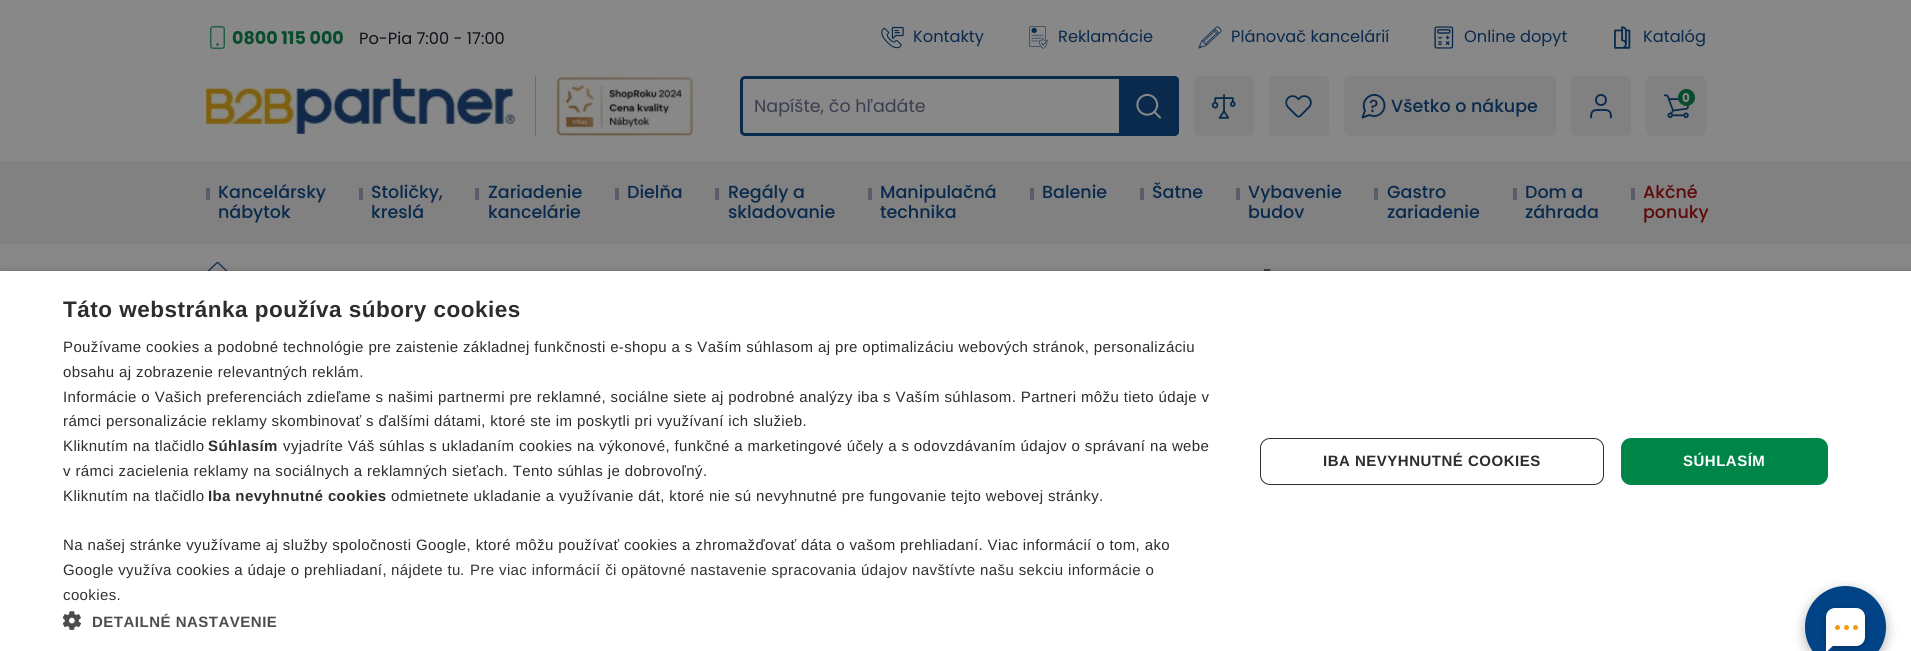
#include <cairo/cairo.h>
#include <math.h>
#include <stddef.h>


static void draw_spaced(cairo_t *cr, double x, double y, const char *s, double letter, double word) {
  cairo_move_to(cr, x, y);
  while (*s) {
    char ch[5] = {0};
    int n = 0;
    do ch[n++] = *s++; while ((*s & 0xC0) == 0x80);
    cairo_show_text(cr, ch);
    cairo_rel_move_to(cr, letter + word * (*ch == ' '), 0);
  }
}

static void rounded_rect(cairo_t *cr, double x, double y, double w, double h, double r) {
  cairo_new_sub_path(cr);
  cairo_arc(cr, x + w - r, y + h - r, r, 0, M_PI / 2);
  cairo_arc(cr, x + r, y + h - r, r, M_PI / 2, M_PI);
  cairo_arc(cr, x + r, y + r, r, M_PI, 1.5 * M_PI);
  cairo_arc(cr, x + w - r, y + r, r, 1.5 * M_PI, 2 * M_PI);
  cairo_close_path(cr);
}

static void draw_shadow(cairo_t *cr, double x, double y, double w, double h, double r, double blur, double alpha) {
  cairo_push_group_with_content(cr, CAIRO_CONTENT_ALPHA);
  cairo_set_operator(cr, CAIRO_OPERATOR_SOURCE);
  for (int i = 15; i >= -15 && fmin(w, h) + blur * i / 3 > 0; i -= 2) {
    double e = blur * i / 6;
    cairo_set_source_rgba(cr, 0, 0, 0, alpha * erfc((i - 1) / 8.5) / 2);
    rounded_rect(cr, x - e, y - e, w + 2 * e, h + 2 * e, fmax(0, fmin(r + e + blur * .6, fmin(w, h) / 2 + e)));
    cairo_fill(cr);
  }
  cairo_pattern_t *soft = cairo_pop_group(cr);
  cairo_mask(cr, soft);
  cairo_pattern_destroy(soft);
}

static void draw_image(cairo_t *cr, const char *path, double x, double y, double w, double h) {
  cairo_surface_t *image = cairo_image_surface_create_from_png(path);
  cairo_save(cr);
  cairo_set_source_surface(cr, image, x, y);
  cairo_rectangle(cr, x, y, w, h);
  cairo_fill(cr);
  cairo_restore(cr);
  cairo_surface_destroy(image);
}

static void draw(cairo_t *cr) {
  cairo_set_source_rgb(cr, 136 / 255.0, 136 / 255.0, 136 / 255.0);
  cairo_paint(cr);
  rounded_rect(cr, 210.75, 26.75, 13.5, 21.5, 2.25);
  cairo_set_source_rgb(cr, 36 / 255.0, 94 / 255.0, 66 / 255.0);
  cairo_set_line_width(cr, 1.5);
  cairo_stroke(cr);
  cairo_arc(cr, 217.5, 44.5, 1.4, 0, 2 * M_PI);
  cairo_fill(cr);
  draw_image(cr, "images/1.png", 881, 26, 23, 23);
  draw_image(cr, "images/2.png", 1029, 26, 19, 23);
  draw_image(cr, "images/3.png", 1198, 26, 24, 23);
  draw_image(cr, "images/4.png", 1434, 26, 20, 23);
  draw_image(cr, "images/5.png", 1614, 26, 17, 23);
  draw_image(cr, "images/6.png", 206, 78, 309, 56);
  cairo_set_source_rgb(cr, 107 / 255.0, 107 / 255.0, 107 / 255.0);
  cairo_rectangle(cr, 535, 76, 1, 60);
  cairo_fill(cr);
  draw_image(cr, "images/7.png", 556, 76, 138, 61);
  cairo_set_source_rgb(cr, 129 / 255.0, 129 / 255.0, 130 / 255.0);
  rounded_rect(cr, 1646, 76, 60, 60, 5);
  cairo_fill(cr);
  draw_image(cr, "images/8.png", 1664, 94, 25, 25);
  cairo_set_source_rgb(cr, 9 / 255.0, 75 / 255.0, 45 / 255.0);
  cairo_arc(cr, 1686.5, 97.5, 8.5, 0, 2 * M_PI);
  cairo_fill(cr);
  rounded_rect(cr, 741.5, 77.5, 436, 57, 3.5);
  cairo_set_source_rgb(cr, 9 / 255.0, 42 / 255.0, 76 / 255.0);
  cairo_set_line_width(cr, 3);
  cairo_stroke(cr);
  cairo_new_path(cr);
  cairo_move_to(cr, 1119, 76);
  cairo_line_to(cr, 1174, 76);
  cairo_curve_to(cr, 1177, 76, 1179, 78, 1179, 81);
  cairo_line_to(cr, 1179, 131);
  cairo_curve_to(cr, 1179, 134, 1177, 136, 1174, 136);
  cairo_line_to(cr, 1119, 136);
  cairo_close_path(cr);
  cairo_fill(cr);
  draw_image(cr, "images/9.png", 1136, 93, 25, 26);
  cairo_set_source_rgb(cr, 129 / 255.0, 129 / 255.0, 130 / 255.0);
  rounded_rect(cr, 1194, 76, 60, 60, 5);
  cairo_fill(cr);
  draw_image(cr, "images/10.png", 1211, 94, 25, 25);
  rounded_rect(cr, 1269, 76, 60, 60, 5);
  cairo_fill(cr);
  draw_image(cr, "images/11.png", 1285, 95, 27, 23);
  rounded_rect(cr, 1344, 76, 212, 60, 5);
  cairo_fill(cr);
  cairo_new_path(cr);
  cairo_move_to(cr, 1384.5, 105.5);
  cairo_curve_to(cr, 1384.5, 113, 1376.5, 118.5, 1369.5, 115);
  cairo_line_to(cr, 1362.5, 117.5);
  cairo_line_to(cr, 1365, 110.5);
  cairo_curve_to(cr, 1359.5, 100, 1373, 89.5, 1381.5, 98);
  cairo_curve_to(cr, 1383.5, 100, 1384.5, 103, 1384.5, 105.5);
  cairo_close_path(cr);
  cairo_set_source_rgb(cr, 9 / 255.0, 42 / 255.0, 76 / 255.0);
  cairo_set_line_width(cr, 1.9);
  cairo_set_line_cap(cr, CAIRO_LINE_CAP_ROUND);
  cairo_set_line_join(cr, CAIRO_LINE_JOIN_ROUND);
  cairo_stroke(cr);
  cairo_set_source_rgb(cr, 129 / 255.0, 129 / 255.0, 130 / 255.0);
  rounded_rect(cr, 1571, 76, 60, 60, 5);
  cairo_fill(cr);
  cairo_new_path(cr);
  cairo_move_to(cr, 1611, 117.5);
  cairo_curve_to(cr, 1611, 109.5, 1608, 110, 1601, 110);
  cairo_curve_to(cr, 1594.5, 110, 1591, 109.5, 1591, 117.5);
  cairo_set_source_rgb(cr, 9 / 255.0, 42 / 255.0, 76 / 255.0);
  cairo_stroke(cr);
  cairo_arc(cr, 1601, 100, 5, 0, 2 * M_PI);
  cairo_set_line_cap(cr, CAIRO_LINE_CAP_BUTT);
  cairo_set_line_join(cr, CAIRO_LINE_JOIN_MITER);
  cairo_stroke(cr);
  cairo_set_source_rgb(cr, 129 / 255.0, 129 / 255.0, 130 / 255.0);
  cairo_rectangle(cr, 0, 161, 1911, 83);
  cairo_fill(cr);
  cairo_set_source_rgb(cr, 91 / 255.0, 92 / 255.0, 105 / 255.0);
  cairo_rectangle(cr, 206, 188, 4, 12);
  cairo_fill(cr);
  cairo_rectangle(cr, 359, 188, 4, 12);
  cairo_fill(cr);
  cairo_rectangle(cr, 475, 188, 4, 12);
  cairo_fill(cr);
  cairo_rectangle(cr, 615, 188, 4, 12);
  cairo_fill(cr);
  cairo_rectangle(cr, 715, 188, 4, 12);
  cairo_fill(cr);
  cairo_rectangle(cr, 868, 188, 4, 12);
  cairo_fill(cr);
  cairo_rectangle(cr, 1030, 188, 4, 12);
  cairo_fill(cr);
  cairo_rectangle(cr, 1140, 188, 4, 12);
  cairo_fill(cr);
  cairo_rectangle(cr, 1236, 188, 4, 12);
  cairo_fill(cr);
  cairo_rectangle(cr, 1374, 188, 4, 12);
  cairo_fill(cr);
  cairo_rectangle(cr, 1513, 188, 4, 12);
  cairo_fill(cr);
  cairo_rectangle(cr, 1631, 188, 4, 12);
  cairo_fill(cr);
  draw_image(cr, "images/12.png", 207, 261, 21, 10);
  cairo_set_source_rgb(cr, 0, 0, 0);
  draw_shadow(cr, 1, 274, 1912, 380, 0, 5, 0.35);
  cairo_set_source_rgb(cr, 1, 1, 1);
  cairo_rectangle(cr, 0, 271, 1911, 380);
  cairo_fill(cr);
  draw_image(cr, "images/13.png", 63, 611, 18, 19);
  rounded_rect(cr, 1260.5, 438.5, 343, 46, 9.5);
  cairo_set_source_rgb(cr, 45 / 255.0, 45 / 255.0, 45 / 255.0);
  cairo_set_line_width(cr, 1);
  cairo_stroke(cr);
  cairo_set_source_rgb(cr, 0, 133 / 255.0, 73 / 255.0);
  rounded_rect(cr, 1621, 438, 207, 47, 10);
  cairo_fill(cr);
  cairo_set_source_rgb(cr, 0, 0, 0);
  draw_shadow(cr, 1805, 590, 81, 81, 40.5, 6, 0.3);
  cairo_set_source_rgb(cr, 0, 67 / 255.0, 134 / 255.0);
  rounded_rect(cr, 1805, 586, 81, 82, 40.5);
  cairo_fill(cr);
  cairo_set_source_rgb(cr, 0, 0, 0);
  draw_shadow(cr, 1826, 610, 39, 39, 9, 3, 0.2);
  cairo_set_source_rgb(cr, 1, 1, 1);
  cairo_new_path(cr);
  cairo_move_to(cr, 1835, 608);
  cairo_line_to(cr, 1856, 608);
  cairo_curve_to(cr, 1861, 608, 1865, 612, 1865, 617);
  cairo_line_to(cr, 1865, 637);
  cairo_curve_to(cr, 1865, 642, 1861, 646, 1856, 646);
  cairo_line_to(cr, 1826, 646);
  cairo_line_to(cr, 1826, 617);
  cairo_curve_to(cr, 1826, 612, 1830, 608, 1835, 608);
  cairo_close_path(cr);
  cairo_fill(cr);
  cairo_set_source_rgb(cr, 243 / 255.0, 156 / 255.0, 18 / 255.0);
  cairo_arc(cr, 1837.5, 627.5, 2.5, 0, 2 * M_PI);
  cairo_fill(cr);
  cairo_arc(cr, 1846.5, 627.5, 2.5, 0, 2 * M_PI);
  cairo_fill(cr);
  cairo_arc(cr, 1855.5, 627.5, 2.5, 0, 2 * M_PI);
  cairo_fill(cr);
  cairo_set_source_rgb(cr, 1, 1, 1);
  cairo_new_path(cr);
  cairo_move_to(cr, 1826, 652.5);
  cairo_line_to(cr, 1826, 640);
  cairo_line_to(cr, 1839, 640);
  cairo_close_path(cr);
  cairo_fill(cr);
  cairo_select_font_face(cr, "Poppins", CAIRO_FONT_SLANT_NORMAL, CAIRO_FONT_WEIGHT_BOLD);
  cairo_set_font_size(cr, 17.5);
  cairo_set_source_rgb(cr, 9 / 255.0, 75 / 255.0, 45 / 255.0);
  cairo_move_to(cr, 232, 44);
  cairo_show_text(cr, "0800 115 000");
  cairo_select_font_face(cr, "Poppins", CAIRO_FONT_SLANT_NORMAL, CAIRO_FONT_WEIGHT_NORMAL);
  cairo_set_font_size(cr, 16.25);
  cairo_set_source_rgb(cr, 13 / 255.0, 18 / 255.0, 24 / 255.0);
  cairo_move_to(cr, 359, 44);
  cairo_show_text(cr, "Po-Pia 7:00 - 17:00");
  cairo_set_source_rgb(cr, 9 / 255.0, 42 / 255.0, 76 / 255.0);
  cairo_move_to(cr, 913, 42);
  cairo_show_text(cr, "Kontakty");
  cairo_move_to(cr, 1058, 42);
  cairo_show_text(cr, "Reklamácie");
  cairo_move_to(cr, 1231, 42);
  cairo_show_text(cr, "Plánovač kancelárií");
  cairo_move_to(cr, 1464, 42);
  cairo_show_text(cr, "Online dopyt");
  cairo_move_to(cr, 1643, 42);
  cairo_show_text(cr, "Katalóg");
  cairo_select_font_face(cr, "Poppins", CAIRO_FONT_SLANT_NORMAL, CAIRO_FONT_WEIGHT_BOLD);
  cairo_set_font_size(cr, 12);
  cairo_set_source_rgb(cr, 136 / 255.0, 136 / 255.0, 136 / 255.0);
  cairo_move_to(cr, 1682, 102);
  cairo_show_text(cr, "0");
  cairo_select_font_face(cr, "Poppins", CAIRO_FONT_SLANT_NORMAL, CAIRO_FONT_WEIGHT_NORMAL);
  cairo_set_font_size(cr, 17.5);
  cairo_set_source_rgb(cr, 59 / 255.0, 62 / 255.0, 78 / 255.0);
  cairo_move_to(cr, 754, 112);
  cairo_show_text(cr, "Napíšte, čo hľadáte");
  cairo_select_font_face(cr, "Poppins Medium", CAIRO_FONT_SLANT_NORMAL, CAIRO_FONT_WEIGHT_NORMAL);
  cairo_set_source_rgb(cr, 9 / 255.0, 42 / 255.0, 76 / 255.0);
  cairo_move_to(cr, 1391, 112);
  cairo_show_text(cr, "Všetko o nákupe");
  cairo_move_to(cr, 1369, 112);
  cairo_show_text(cr, "?");
  cairo_move_to(cr, 218, 198);
  cairo_show_text(cr, "Kancelársky");
  cairo_move_to(cr, 218, 218);
  cairo_show_text(cr, "nábytok");
  cairo_move_to(cr, 371, 198);
  cairo_show_text(cr, "Stoličky,");
  cairo_move_to(cr, 371, 218);
  cairo_show_text(cr, "kreslá");
  cairo_move_to(cr, 488, 198);
  cairo_show_text(cr, "Zariadenie");
  cairo_move_to(cr, 488, 218);
  cairo_show_text(cr, "kancelárie");
  cairo_move_to(cr, 627, 198);
  cairo_show_text(cr, "Dielňa");
  cairo_move_to(cr, 728, 198);
  cairo_show_text(cr, "Regály a");
  cairo_move_to(cr, 728, 218);
  cairo_show_text(cr, "skladovanie");
  cairo_move_to(cr, 880, 198);
  cairo_show_text(cr, "Manipulačná");
  cairo_move_to(cr, 880, 218);
  cairo_show_text(cr, "technika");
  cairo_move_to(cr, 1042, 198);
  cairo_show_text(cr, "Balenie");
  cairo_move_to(cr, 1152, 198);
  cairo_show_text(cr, "Šatne");
  cairo_move_to(cr, 1248, 198);
  cairo_show_text(cr, "Vybavenie");
  cairo_move_to(cr, 1248, 218);
  cairo_show_text(cr, "budov");
  cairo_move_to(cr, 1387, 198);
  cairo_show_text(cr, "Gastro");
  cairo_move_to(cr, 1387, 218);
  cairo_show_text(cr, "zariadenie");
  cairo_move_to(cr, 1525, 198);
  cairo_show_text(cr, "Dom a");
  cairo_move_to(cr, 1525, 218);
  cairo_show_text(cr, "záhrada");
  cairo_set_source_rgb(cr, 95 / 255.0, 9 / 255.0, 9 / 255.0);
  cairo_move_to(cr, 1643, 198);
  cairo_show_text(cr, "Akčné");
  cairo_move_to(cr, 1643, 218);
  cairo_show_text(cr, "ponuky");
  cairo_select_font_face(cr, "Poppins", CAIRO_FONT_SLANT_NORMAL, CAIRO_FONT_WEIGHT_NORMAL);
  cairo_set_font_size(cr, 16.25);
  cairo_set_source_rgb(cr, 13 / 255.0, 18 / 255.0, 24 / 255.0);
  cairo_move_to(cr, 1263, 276);
  cairo_show_text(cr, "-");
  cairo_select_font_face(cr, "Liberation Sans", CAIRO_FONT_SLANT_NORMAL, CAIRO_FONT_WEIGHT_BOLD);
  cairo_set_font_size(cr, 22.5);
  cairo_set_source_rgb(cr, 45 / 255.0, 45 / 255.0, 45 / 255.0);
  draw_spaced(cr, 63, 317, "Táto webstránka používa súbory cookies", 0.5, 0);
  cairo_select_font_face(cr, "Liberation Sans", CAIRO_FONT_SLANT_NORMAL, CAIRO_FONT_WEIGHT_NORMAL);
  cairo_set_font_size(cr, 15);
  draw_spaced(cr, 63, 352, "Používame cookies a podobné technológie pre zaistenie základnej funkčnosti e-shopu a s Vaším súhlasom aj pre optimalizáciu webových stránok, personalizáciu", 0.38, 0);
  draw_spaced(cr, 63, 377, "obsahu aj zobrazenie relevantných reklám.", 0.38, 0);
  draw_spaced(cr, 63, 402, "Informácie o Vašich preferenciách zdieľame s našimi partnermi pre reklamné, sociálne siete aj podrobné analýzy iba s Vaším súhlasom. Partneri môžu tieto údaje v", 0.38, 0);
  draw_spaced(cr, 63, 426, "rámci personalizácie reklamy skombinovať s ďalšími dátami, ktoré ste im poskytli pri využívaní ich služieb.", 0.38, 0);
  draw_spaced(cr, 63, 451, "Kliknutím na tlačidlo", 0.38, 0);
  cairo_select_font_face(cr, "Liberation Sans", CAIRO_FONT_SLANT_NORMAL, CAIRO_FONT_WEIGHT_BOLD);
  draw_spaced(cr, 208, 451, "Súhlasím", 0.38, 0);
  cairo_select_font_face(cr, "Liberation Sans", CAIRO_FONT_SLANT_NORMAL, CAIRO_FONT_WEIGHT_NORMAL);
  draw_spaced(cr, 283, 451, "vyjadríte Váš súhlas s ukladaním cookies na výkonové, funkčné a marketingové účely a s odovzdávaním údajov o správaní na webe", 0.38, 0);
  draw_spaced(cr, 63, 476, "v rámci zacielenia reklamy na sociálnych a reklamných sieťach. Tento súhlas je dobrovoľný.", 0.38, 0);
  draw_spaced(cr, 63, 501, "Kliknutím na tlačidlo", 0.38, 0);
  cairo_select_font_face(cr, "Liberation Sans", CAIRO_FONT_SLANT_NORMAL, CAIRO_FONT_WEIGHT_BOLD);
  draw_spaced(cr, 208, 501, "Iba nevyhnutné cookies", 0.38, 0);
  cairo_select_font_face(cr, "Liberation Sans", CAIRO_FONT_SLANT_NORMAL, CAIRO_FONT_WEIGHT_NORMAL);
  draw_spaced(cr, 391, 501, "odmietnete ukladanie a využívanie dát, ktoré nie sú nevyhnutné pre fungovanie tejto webovej stránky.", 0.38, 0);
  draw_spaced(cr, 63, 550, "Na našej stránke využívame aj služby spoločnosti Google, ktoré môžu používať cookies a zhromažďovať dáta o vašom prehliadaní. Viac informácií o tom, ako", 0.38, 0);
  draw_spaced(cr, 63, 575, "Google využíva cookies a údaje o prehliadaní,", 0.38, 0);
  cairo_set_source_rgb(cr, 51 / 255.0, 51 / 255.0, 51 / 255.0);
  draw_spaced(cr, 391, 575, "nájdete tu", 0.38, 0);
  cairo_set_source_rgb(cr, 45 / 255.0, 45 / 255.0, 45 / 255.0);
  draw_spaced(cr, 460, 575, ".", 0.38, 0);
  cairo_set_source_rgb(cr, 51 / 255.0, 51 / 255.0, 51 / 255.0);
  draw_spaced(cr, 470, 575, "Pre viac informácií či opätovné nastavenie spracovania údajov navštívte našu sekciu informácie o", 0.38, 0);
  draw_spaced(cr, 63, 600, "cookies.", 0.38, 0);
  cairo_select_font_face(cr, "Liberation Sans", CAIRO_FONT_SLANT_NORMAL, CAIRO_FONT_WEIGHT_BOLD);
  cairo_set_source_rgb(cr, 77 / 255.0, 77 / 255.0, 77 / 255.0);
  draw_spaced(cr, 92, 627, "DETAILNÉ NASTAVENIE", 0.5, 0);
  cairo_set_source_rgb(cr, 45 / 255.0, 45 / 255.0, 45 / 255.0);
  draw_spaced(cr, 1323, 466, "IBA NEVYHNUTNÉ COOKIES", 0.5, 0);
  cairo_set_source_rgb(cr, 1, 1, 1);
  draw_spaced(cr, 1683, 466, "SÚHLASÍM", 0.5, 0);
}

int main(void) {
  cairo_surface_t *surface = cairo_image_surface_create(CAIRO_FORMAT_RGB24, 1911, 651);
  cairo_t *cr = cairo_create(surface);
  cairo_font_options_t *options = cairo_font_options_create();
  cairo_font_options_set_hint_metrics(options, CAIRO_HINT_METRICS_OFF);
  cairo_font_options_set_hint_style(options, CAIRO_HINT_STYLE_NONE);
  cairo_set_font_options(cr, options);
  cairo_set_miter_limit(cr, 4);
  draw(cr);
  cairo_surface_write_to_png(surface, "out.png");
  cairo_font_options_destroy(options);
  cairo_destroy(cr);
  cairo_surface_destroy(surface);
  return 0;
}
